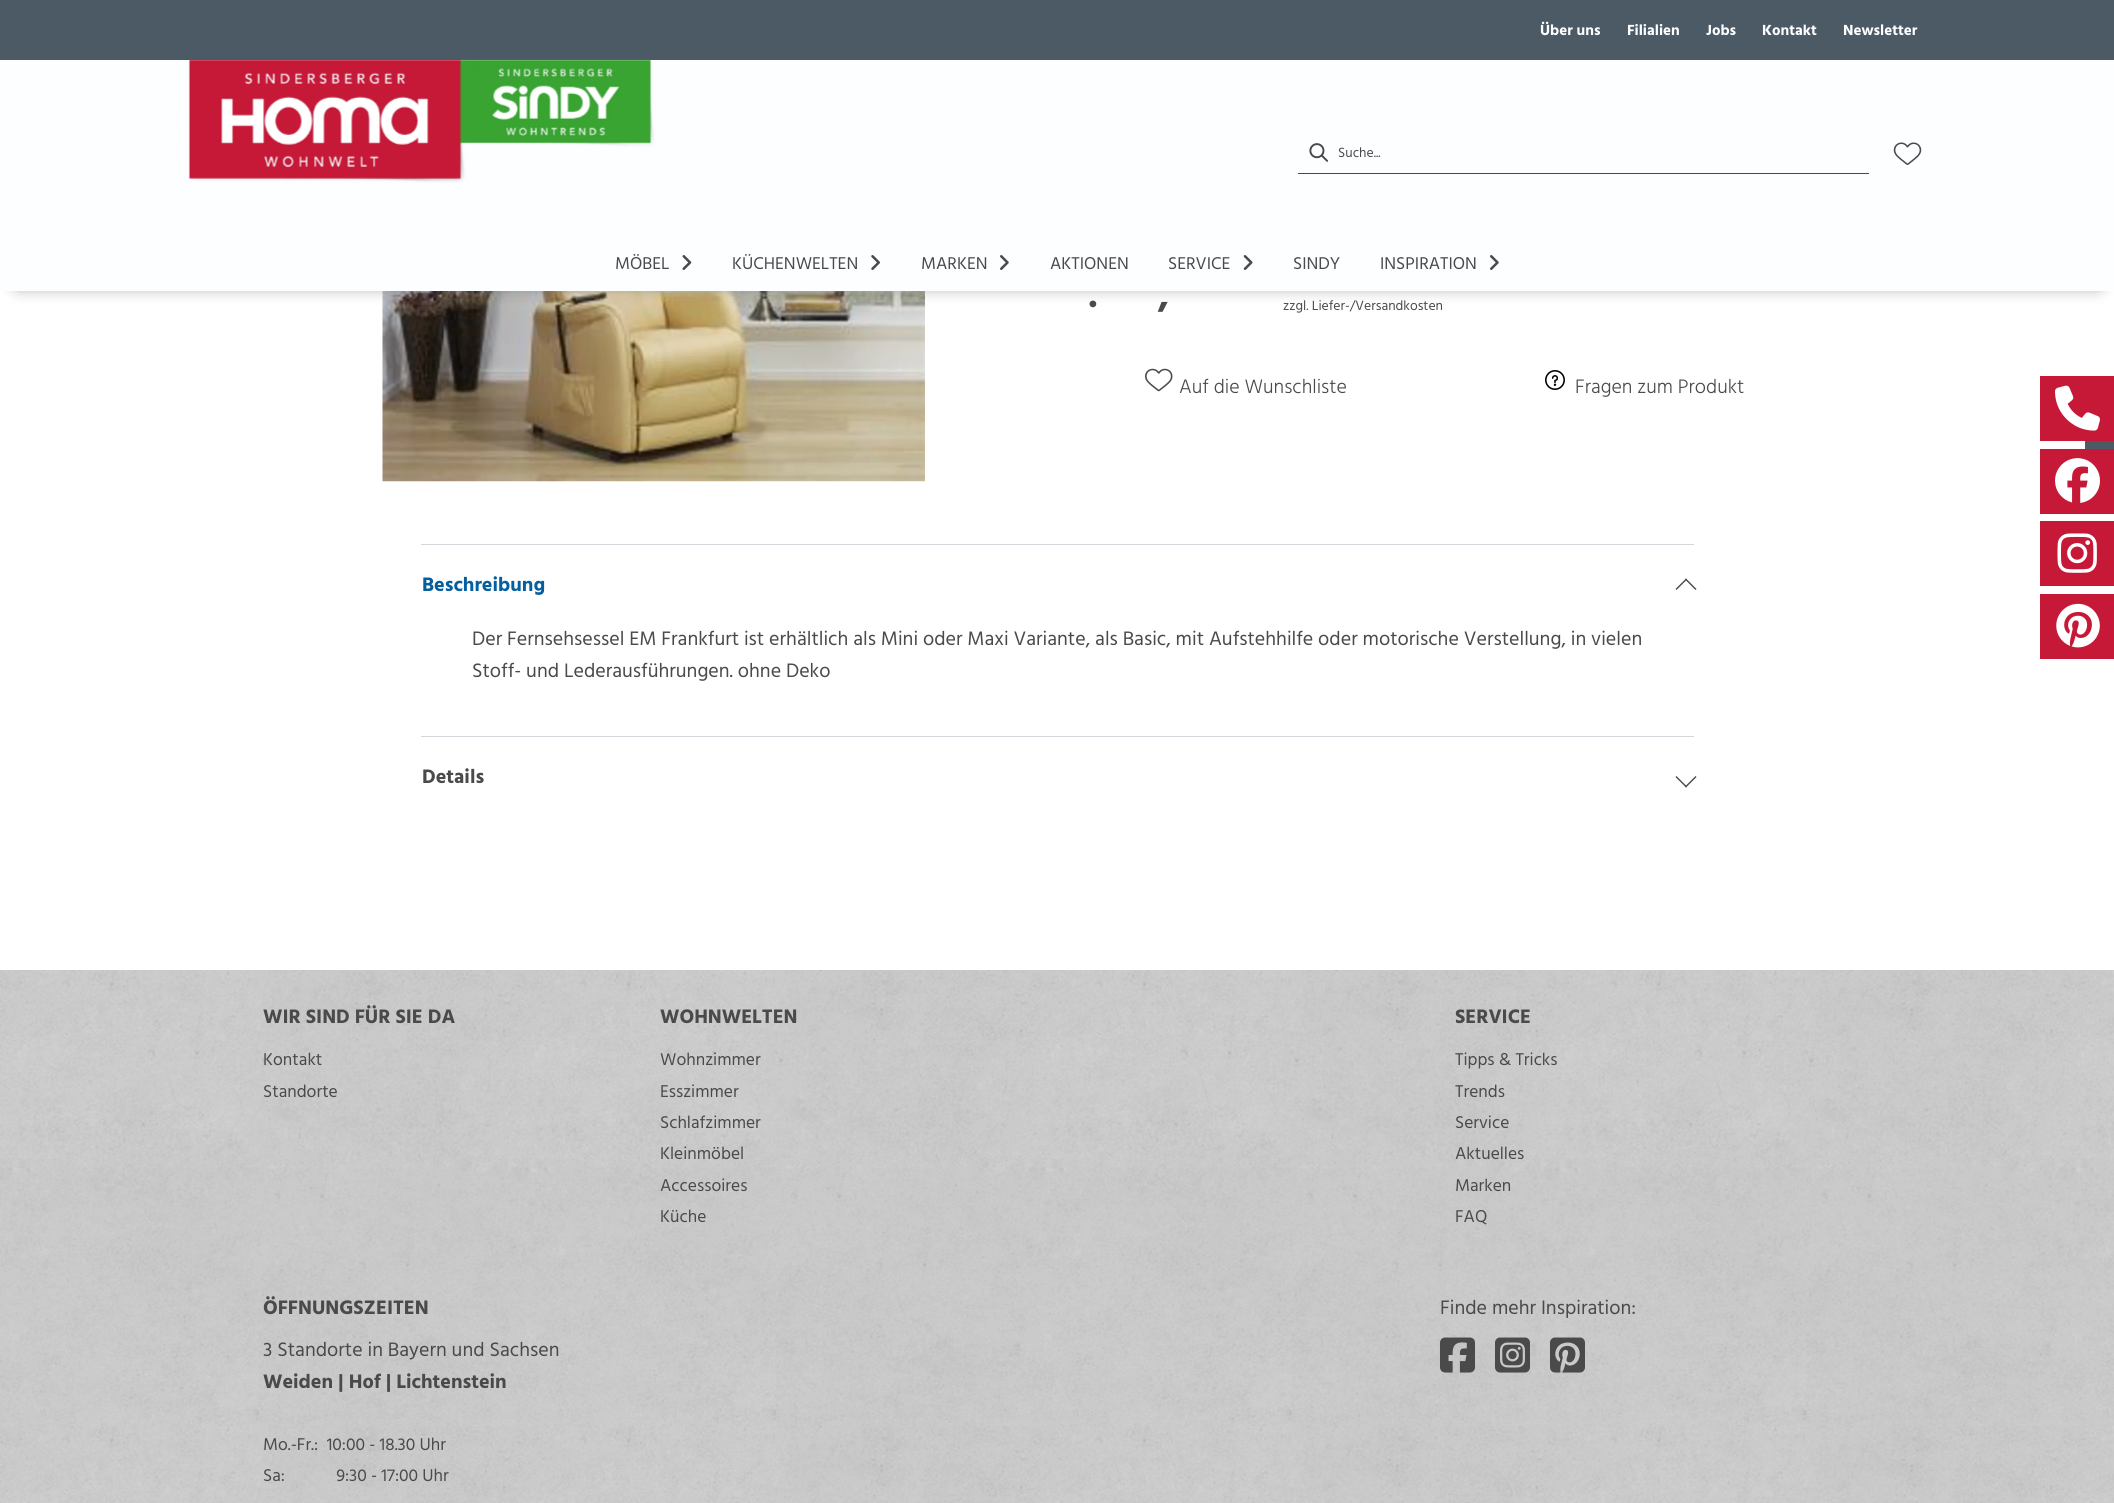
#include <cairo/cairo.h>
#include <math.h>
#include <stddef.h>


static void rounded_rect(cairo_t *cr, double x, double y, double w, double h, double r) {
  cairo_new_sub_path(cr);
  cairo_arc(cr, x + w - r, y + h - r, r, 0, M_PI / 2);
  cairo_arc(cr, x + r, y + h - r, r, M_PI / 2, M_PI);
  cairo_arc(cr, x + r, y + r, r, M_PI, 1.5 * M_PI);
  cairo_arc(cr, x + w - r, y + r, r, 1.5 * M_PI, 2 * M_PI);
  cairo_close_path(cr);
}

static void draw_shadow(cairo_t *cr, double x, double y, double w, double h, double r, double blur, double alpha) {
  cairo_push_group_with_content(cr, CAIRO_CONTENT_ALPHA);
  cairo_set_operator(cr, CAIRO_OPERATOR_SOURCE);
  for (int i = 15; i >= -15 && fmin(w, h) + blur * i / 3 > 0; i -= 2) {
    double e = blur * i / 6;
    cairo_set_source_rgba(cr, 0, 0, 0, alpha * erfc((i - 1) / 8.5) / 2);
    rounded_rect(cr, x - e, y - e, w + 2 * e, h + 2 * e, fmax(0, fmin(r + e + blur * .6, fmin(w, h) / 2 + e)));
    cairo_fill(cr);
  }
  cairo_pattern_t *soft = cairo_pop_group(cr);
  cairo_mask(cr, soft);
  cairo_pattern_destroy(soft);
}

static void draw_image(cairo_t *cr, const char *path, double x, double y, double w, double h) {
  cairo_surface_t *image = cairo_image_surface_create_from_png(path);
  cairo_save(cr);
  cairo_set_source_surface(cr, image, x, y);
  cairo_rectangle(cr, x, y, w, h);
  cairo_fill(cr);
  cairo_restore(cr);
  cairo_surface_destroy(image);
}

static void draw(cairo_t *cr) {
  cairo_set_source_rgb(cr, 1, 1, 1);
  cairo_paint(cr);
  draw_image(cr, "images/12.png", 382, 291, 543, 191);
  cairo_set_source_rgb(cr, 74 / 255.0, 74 / 255.0, 74 / 255.0);
  draw_shadow(cr, 18, 26, 2080, 257, 0, 9, 1);
  cairo_set_source_rgb(cr, 253 / 255.0, 254 / 255.0, 1);
  cairo_rectangle(cr, 0, 60, 2114, 231);
  cairo_fill(cr);
  cairo_set_source_rgb(cr, 76 / 255.0, 90 / 255.0, 101 / 255.0);
  cairo_rectangle(cr, 1928, 0, 186, 60);
  cairo_fill(cr);
  cairo_rectangle(cr, 0, 0, 1928, 60);
  cairo_fill(cr);
  draw_image(cr, "images/1.png", 188, 59, 467, 124);
  cairo_set_source_rgb(cr, 74 / 255.0, 74 / 255.0, 74 / 255.0);
  cairo_rectangle(cr, 1298, 173, 571, 1);
  cairo_fill(cr);
  draw_image(cr, "images/2.png", 1309, 143, 20, 19);
  draw_image(cr, "images/3.png", 1893, 142, 29, 23);
  draw_image(cr, "images/4.png", 682, 255, 10, 15);
  draw_image(cr, "images/5.png", 871, 255, 9, 15);
  draw_image(cr, "images/6.png", 1000, 255, 9, 15);
  draw_image(cr, "images/7.png", 1243, 255, 10, 15);
  draw_image(cr, "images/6.png", 1490, 255, 9, 15);
  cairo_set_source_rgb(cr, 198 / 255.0, 25 / 255.0, 56 / 255.0);
  cairo_rectangle(cr, 2040, 376, 74, 65);
  cairo_fill(cr);
  draw_image(cr, "images/8.png", 2055, 385, 45, 46);
  cairo_rectangle(cr, 2040, 449, 74, 65);
  cairo_fill(cr);
  draw_image(cr, "images/9.png", 2055, 458, 45, 45);
  cairo_rectangle(cr, 2040, 521, 74, 65);
  cairo_fill(cr);
  draw_image(cr, "images/10.png", 2057, 533, 40, 40);
  cairo_rectangle(cr, 2040, 594, 74, 65);
  cairo_fill(cr);
  draw_image(cr, "images/11.png", 2056, 603, 44, 45);
  cairo_set_source_rgb(cr, 76 / 255.0, 90 / 255.0, 101 / 255.0);
  cairo_rectangle(cr, 2085, 441, 29, 8);
  cairo_fill(cr);
  draw_image(cr, "images/13.png", 1145, 368, 28, 24);
  draw_image(cr, "images/14.png", 1545, 370, 20, 20);
  cairo_set_source_rgb(cr, 211 / 255.0, 214 / 255.0, 219 / 255.0);
  cairo_rectangle(cr, 421, 544, 1273, 1);
  cairo_fill(cr);
  cairo_set_source_rgb(cr, 74 / 255.0, 74 / 255.0, 74 / 255.0);
  cairo_new_path(cr);
  cairo_move_to(cr, 1687, 579.5);
  cairo_line_to(cr, 1676.5, 590);
  cairo_line_to(cr, 1675.5, 589);
  cairo_line_to(cr, 1686, 578.5);
  cairo_close_path(cr);
  cairo_fill(cr);
  cairo_new_path(cr);
  cairo_move_to(cr, 1696.5, 589);
  cairo_line_to(cr, 1695.5, 590);
  cairo_line_to(cr, 1685, 579.5);
  cairo_line_to(cr, 1686, 578.5);
  cairo_close_path(cr);
  cairo_fill(cr);
  cairo_set_source_rgb(cr, 211 / 255.0, 214 / 255.0, 219 / 255.0);
  cairo_rectangle(cr, 421, 736, 1273, 1);
  cairo_fill(cr);
  cairo_set_source_rgb(cr, 74 / 255.0, 74 / 255.0, 74 / 255.0);
  cairo_new_path(cr);
  cairo_move_to(cr, 1685, 786.5);
  cairo_line_to(cr, 1695.5, 776);
  cairo_line_to(cr, 1696.5, 777);
  cairo_line_to(cr, 1686, 787.5);
  cairo_close_path(cr);
  cairo_fill(cr);
  cairo_new_path(cr);
  cairo_move_to(cr, 1675.5, 777);
  cairo_line_to(cr, 1676.5, 776);
  cairo_line_to(cr, 1687, 786.5);
  cairo_line_to(cr, 1686, 787.5);
  cairo_close_path(cr);
  cairo_fill(cr);
  draw_image(cr, "images/15.png", 0, 970, 2114, 533);
  draw_image(cr, "images/16.png", 1440, 1337, 35, 36);
  draw_image(cr, "images/17.png", 1495, 1337, 35, 36);
  draw_image(cr, "images/18.png", 1550, 1337, 35, 36);
  cairo_select_font_face(cr, "Hind Vadodara", CAIRO_FONT_SLANT_NORMAL, CAIRO_FONT_WEIGHT_BOLD);
  cairo_set_font_size(cr, 15);
  cairo_set_source_rgb(cr, 253 / 255.0, 254 / 255.0, 1);
  cairo_move_to(cr, 1540, 35);
  cairo_show_text(cr, "Über uns");
  cairo_move_to(cr, 1627, 35);
  cairo_show_text(cr, "Filialien");
  cairo_move_to(cr, 1706, 35);
  cairo_show_text(cr, "Jobs");
  cairo_move_to(cr, 1762, 35);
  cairo_show_text(cr, "Kontakt");
  cairo_move_to(cr, 1843, 35);
  cairo_show_text(cr, "Newsletter");
  cairo_select_font_face(cr, "Hind Vadodara", CAIRO_FONT_SLANT_NORMAL, CAIRO_FONT_WEIGHT_NORMAL);
  cairo_set_font_size(cr, 13.75);
  cairo_set_source_rgb(cr, 74 / 255.0, 74 / 255.0, 74 / 255.0);
  cairo_move_to(cr, 1338, 157);
  cairo_show_text(cr, "Suche...");
  cairo_set_font_size(cr, 17.5);
  cairo_move_to(cr, 615, 269);
  cairo_show_text(cr, "MÖBEL");
  cairo_move_to(cr, 732, 269);
  cairo_show_text(cr, "KÜCHENWELTEN");
  cairo_move_to(cr, 921, 269);
  cairo_show_text(cr, "MARKEN");
  cairo_move_to(cr, 1050, 269);
  cairo_show_text(cr, "AKTIONEN");
  cairo_move_to(cr, 1168, 269);
  cairo_show_text(cr, "SERVICE");
  cairo_move_to(cr, 1293, 269);
  cairo_show_text(cr, "SINDY");
  cairo_move_to(cr, 1380, 269);
  cairo_show_text(cr, "INSPIRATION");
  cairo_select_font_face(cr, "Hind Vadodara", CAIRO_FONT_SLANT_NORMAL, CAIRO_FONT_WEIGHT_BOLD);
  cairo_set_font_size(cr, 38);
  cairo_move_to(cr, 1088, 307);
  cairo_show_text(cr, ".");
  cairo_move_to(cr, 1158, 307);
  cairo_show_text(cr, ",");
  cairo_select_font_face(cr, "Hind Vadodara", CAIRO_FONT_SLANT_NORMAL, CAIRO_FONT_WEIGHT_NORMAL);
  cairo_set_font_size(cr, 13.75);
  cairo_move_to(cr, 1283, 310);
  cairo_show_text(cr, "zzgl. Liefer-/Versandkosten");
  cairo_select_font_face(cr, "Hind Vadodara Light", CAIRO_FONT_SLANT_NORMAL, CAIRO_FONT_WEIGHT_NORMAL);
  cairo_set_font_size(cr, 20);
  cairo_move_to(cr, 1179, 393);
  cairo_show_text(cr, "Auf die Wunschliste");
  cairo_move_to(cr, 1575, 393);
  cairo_show_text(cr, "Fragen zum Produkt");
  cairo_select_font_face(cr, "Hind Vadodara", CAIRO_FONT_SLANT_NORMAL, CAIRO_FONT_WEIGHT_BOLD);
  cairo_set_source_rgb(cr, 5 / 255.0, 95 / 255.0, 159 / 255.0);
  cairo_move_to(cr, 422, 591);
  cairo_show_text(cr, "Beschreibung");
  cairo_select_font_face(cr, "Hind Vadodara", CAIRO_FONT_SLANT_NORMAL, CAIRO_FONT_WEIGHT_NORMAL);
  cairo_set_source_rgb(cr, 74 / 255.0, 74 / 255.0, 74 / 255.0);
  cairo_move_to(cr, 472, 645);
  cairo_show_text(cr, "Der Fernsehsessel EM Frankfurt ist erhältlich als Mini oder Maxi Variante, als Basic, mit Aufstehhilfe oder motorische Verstellung, in vielen");
  cairo_move_to(cr, 472, 677);
  cairo_show_text(cr, "Stoff- und Lederausführungen. ohne Deko");
  cairo_select_font_face(cr, "Hind Vadodara", CAIRO_FONT_SLANT_NORMAL, CAIRO_FONT_WEIGHT_BOLD);
  cairo_move_to(cr, 422, 783);
  cairo_show_text(cr, "Details");
  cairo_move_to(cr, 263, 1023);
  cairo_show_text(cr, "WIR SIND FÜR SIE DA");
  cairo_select_font_face(cr, "Hind Vadodara", CAIRO_FONT_SLANT_NORMAL, CAIRO_FONT_WEIGHT_NORMAL);
  cairo_set_font_size(cr, 17.5);
  cairo_move_to(cr, 263, 1065);
  cairo_show_text(cr, "Kontakt");
  cairo_move_to(cr, 263, 1097);
  cairo_show_text(cr, "Standorte");
  cairo_select_font_face(cr, "Hind Vadodara", CAIRO_FONT_SLANT_NORMAL, CAIRO_FONT_WEIGHT_BOLD);
  cairo_set_font_size(cr, 20);
  cairo_move_to(cr, 660, 1023);
  cairo_show_text(cr, "WOHNWELTEN");
  cairo_select_font_face(cr, "Hind Vadodara", CAIRO_FONT_SLANT_NORMAL, CAIRO_FONT_WEIGHT_NORMAL);
  cairo_set_font_size(cr, 17.5);
  cairo_move_to(cr, 660, 1065);
  cairo_show_text(cr, "Wohnzimmer");
  cairo_move_to(cr, 660, 1097);
  cairo_show_text(cr, "Esszimmer");
  cairo_move_to(cr, 660, 1128);
  cairo_show_text(cr, "Schlafzimmer");
  cairo_move_to(cr, 660, 1159);
  cairo_show_text(cr, "Kleinmöbel");
  cairo_move_to(cr, 660, 1191);
  cairo_show_text(cr, "Accessoires");
  cairo_move_to(cr, 660, 1222);
  cairo_show_text(cr, "Küche");
  cairo_select_font_face(cr, "Hind Vadodara", CAIRO_FONT_SLANT_NORMAL, CAIRO_FONT_WEIGHT_BOLD);
  cairo_set_font_size(cr, 20);
  cairo_move_to(cr, 1455, 1023);
  cairo_show_text(cr, "SERVICE");
  cairo_select_font_face(cr, "Hind Vadodara", CAIRO_FONT_SLANT_NORMAL, CAIRO_FONT_WEIGHT_NORMAL);
  cairo_set_font_size(cr, 17.5);
  cairo_move_to(cr, 1455, 1065);
  cairo_show_text(cr, "Tipps & Tricks");
  cairo_move_to(cr, 1455, 1097);
  cairo_show_text(cr, "Trends");
  cairo_move_to(cr, 1455, 1128);
  cairo_show_text(cr, "Service");
  cairo_move_to(cr, 1455, 1159);
  cairo_show_text(cr, "Aktuelles");
  cairo_move_to(cr, 1455, 1191);
  cairo_show_text(cr, "Marken");
  cairo_move_to(cr, 1455, 1222);
  cairo_show_text(cr, "FAQ");
  cairo_select_font_face(cr, "Hind Vadodara", CAIRO_FONT_SLANT_NORMAL, CAIRO_FONT_WEIGHT_BOLD);
  cairo_set_font_size(cr, 20);
  cairo_move_to(cr, 263, 1314);
  cairo_show_text(cr, "ÖFFNUNGSZEITEN");
  cairo_select_font_face(cr, "Hind Vadodara", CAIRO_FONT_SLANT_NORMAL, CAIRO_FONT_WEIGHT_NORMAL);
  cairo_move_to(cr, 263, 1356);
  cairo_show_text(cr, "3 Standorte in Bayern und Sachsen");
  cairo_select_font_face(cr, "Hind Vadodara", CAIRO_FONT_SLANT_NORMAL, CAIRO_FONT_WEIGHT_BOLD);
  cairo_move_to(cr, 263, 1388);
  cairo_show_text(cr, "Weiden | Hof | Lichtenstein");
  cairo_select_font_face(cr, "Hind Vadodara", CAIRO_FONT_SLANT_NORMAL, CAIRO_FONT_WEIGHT_NORMAL);
  cairo_set_font_size(cr, 17.5);
  cairo_move_to(cr, 263, 1450);
  cairo_show_text(cr, "Mo.-Fr.:  10:00 - 18.30 Uhr");
  cairo_move_to(cr, 263, 1481);
  cairo_show_text(cr, "Sa:            9:30 - 17:00 Uhr");
  cairo_set_font_size(cr, 20);
  cairo_move_to(cr, 1440, 1314);
  cairo_show_text(cr, "Finde mehr Inspiration:");
}

int main(void) {
  cairo_surface_t *surface = cairo_image_surface_create(CAIRO_FORMAT_RGB24, 2114, 1503);
  cairo_t *cr = cairo_create(surface);
  cairo_font_options_t *options = cairo_font_options_create();
  cairo_font_options_set_hint_metrics(options, CAIRO_HINT_METRICS_OFF);
  cairo_font_options_set_hint_style(options, CAIRO_HINT_STYLE_NONE);
  cairo_set_font_options(cr, options);
  cairo_set_miter_limit(cr, 4);
  draw(cr);
  cairo_surface_write_to_png(surface, "out.png");
  cairo_font_options_destroy(options);
  cairo_destroy(cr);
  cairo_surface_destroy(surface);
  return 0;
}
